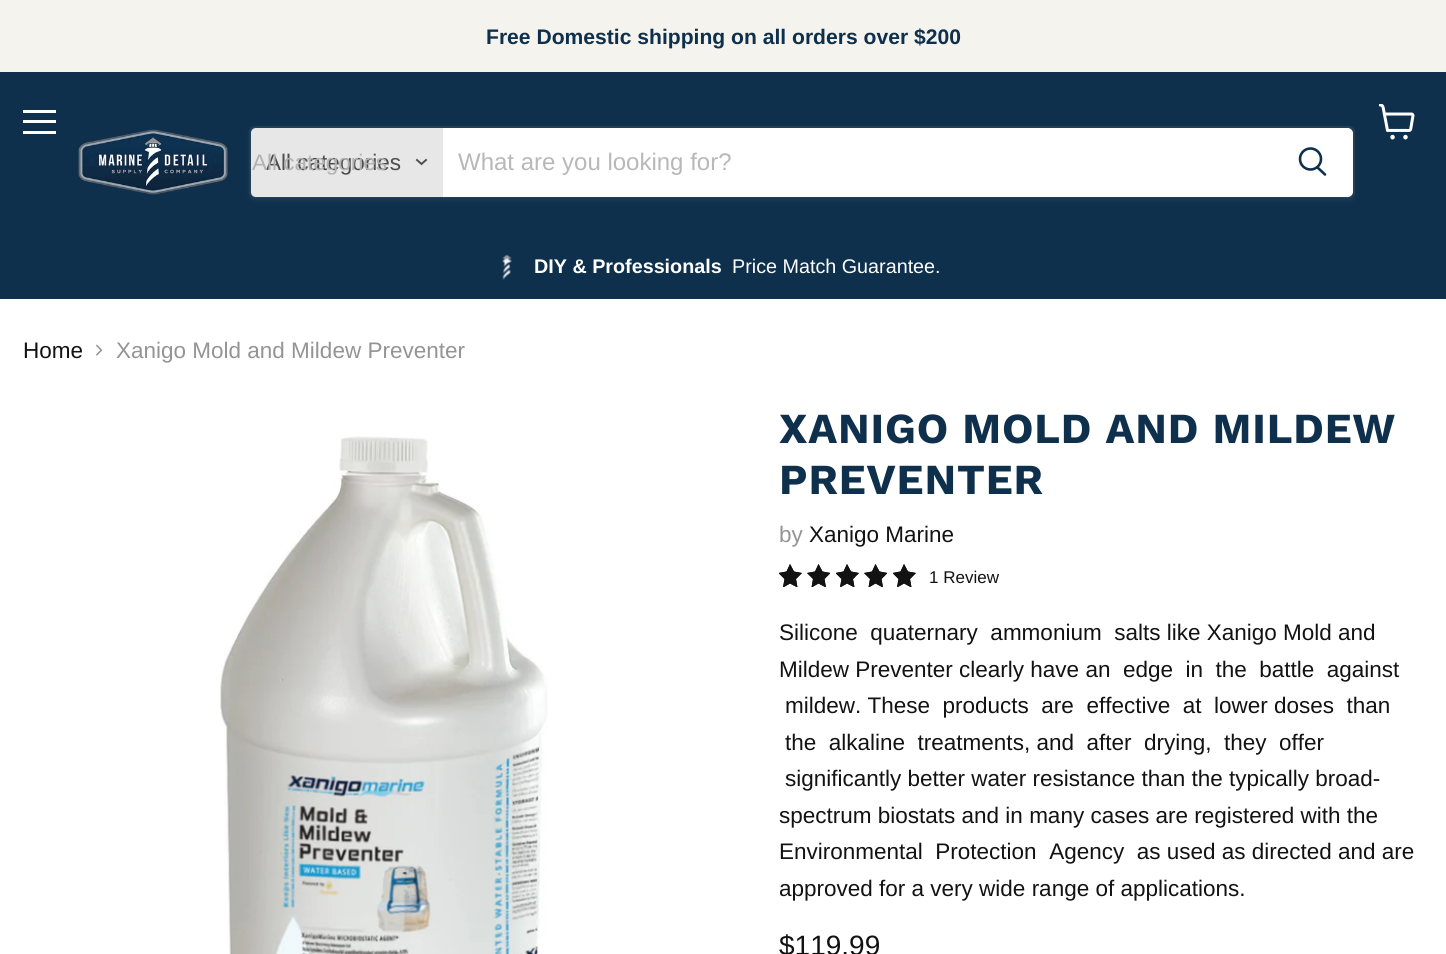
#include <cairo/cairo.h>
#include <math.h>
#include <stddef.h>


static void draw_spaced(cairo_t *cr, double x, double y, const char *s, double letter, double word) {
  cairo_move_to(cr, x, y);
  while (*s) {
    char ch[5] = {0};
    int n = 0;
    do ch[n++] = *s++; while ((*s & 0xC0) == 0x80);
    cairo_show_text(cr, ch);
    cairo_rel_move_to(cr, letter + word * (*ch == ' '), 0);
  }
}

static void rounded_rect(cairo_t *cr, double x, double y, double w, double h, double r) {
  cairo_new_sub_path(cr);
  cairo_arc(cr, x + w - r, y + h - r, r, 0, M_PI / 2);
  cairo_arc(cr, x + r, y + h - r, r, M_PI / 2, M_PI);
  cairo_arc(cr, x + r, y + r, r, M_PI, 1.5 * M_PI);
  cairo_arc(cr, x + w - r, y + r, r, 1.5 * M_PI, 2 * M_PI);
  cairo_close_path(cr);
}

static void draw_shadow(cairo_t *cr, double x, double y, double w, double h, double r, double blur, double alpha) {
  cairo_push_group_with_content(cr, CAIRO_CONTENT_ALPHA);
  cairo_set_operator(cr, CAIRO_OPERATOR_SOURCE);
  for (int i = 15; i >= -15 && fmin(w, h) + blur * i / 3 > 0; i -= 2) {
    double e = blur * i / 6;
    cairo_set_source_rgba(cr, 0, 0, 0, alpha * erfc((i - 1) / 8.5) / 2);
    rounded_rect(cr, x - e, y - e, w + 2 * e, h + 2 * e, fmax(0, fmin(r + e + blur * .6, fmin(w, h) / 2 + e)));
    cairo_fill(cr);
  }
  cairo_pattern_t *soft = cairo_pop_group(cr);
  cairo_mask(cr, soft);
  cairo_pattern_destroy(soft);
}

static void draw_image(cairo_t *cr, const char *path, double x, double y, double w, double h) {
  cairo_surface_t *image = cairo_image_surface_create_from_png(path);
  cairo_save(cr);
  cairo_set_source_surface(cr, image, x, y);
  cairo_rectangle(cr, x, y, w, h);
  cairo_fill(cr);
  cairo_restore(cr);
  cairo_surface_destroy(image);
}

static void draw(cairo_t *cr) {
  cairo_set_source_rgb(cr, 1, 1, 1);
  cairo_paint(cr);
  cairo_set_source_rgb(cr, 245 / 255.0, 243 / 255.0, 237 / 255.0);
  cairo_rectangle(cr, 0, 0, 1446, 72);
  cairo_fill(cr);
  cairo_set_source_rgb(cr, 14 / 255.0, 48 / 255.0, 76 / 255.0);
  cairo_rectangle(cr, 0, 72, 1446, 227);
  cairo_fill(cr);
  cairo_set_source_rgb(cr, 1, 1, 1);
  cairo_rectangle(cr, 23, 110, 33, 3);
  cairo_fill(cr);
  cairo_rectangle(cr, 23, 120, 33, 3);
  cairo_fill(cr);
  cairo_rectangle(cr, 23, 131, 33, 3);
  cairo_fill(cr);
  draw_image(cr, "images/1.png", 1379, 104, 36, 36);
  draw_image(cr, "images/2.png", 78, 129, 150, 66);
  cairo_save(cr);
  cairo_set_fill_rule(cr, CAIRO_FILL_RULE_EVEN_ODD);
  cairo_new_path(cr);
  cairo_move_to(cr, 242, 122);
  cairo_line_to(cr, 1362, 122);
  cairo_line_to(cr, 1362, 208);
  cairo_line_to(cr, 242, 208);
  cairo_close_path(cr);
  cairo_move_to(cr, 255, 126);
  cairo_line_to(cr, 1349, 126);
  cairo_curve_to(cr, 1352.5, 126, 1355, 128.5, 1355, 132);
  cairo_line_to(cr, 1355, 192);
  cairo_curve_to(cr, 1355, 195.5, 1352.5, 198, 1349, 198);
  cairo_line_to(cr, 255, 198);
  cairo_curve_to(cr, 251.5, 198, 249, 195.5, 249, 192);
  cairo_line_to(cr, 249, 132);
  cairo_curve_to(cr, 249, 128.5, 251.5, 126, 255, 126);
  cairo_close_path(cr);
  cairo_clip(cr);
  cairo_set_source_rgb(cr, 128 / 255.0, 128 / 255.0, 128 / 255.0);
  draw_shadow(cr, 249, 129, 1106, 72, 6, 2, 0.11);
  cairo_restore(cr);
  rounded_rect(cr, 250, 127, 1104, 70, 5);
  cairo_set_source_rgba(cr, 128 / 255.0, 128 / 255.0, 128 / 255.0, 0.2);
  cairo_stroke(cr);
  cairo_set_source_rgb(cr, 231 / 255.0, 231 / 255.0, 231 / 255.0);
  cairo_new_path(cr);
  cairo_move_to(cr, 256, 128);
  cairo_line_to(cr, 443, 128);
  cairo_line_to(cr, 443, 197);
  cairo_line_to(cr, 256, 197);
  cairo_curve_to(cr, 253, 197, 251, 195, 251, 192);
  cairo_line_to(cr, 251, 133);
  cairo_curve_to(cr, 251, 130, 253, 128, 256, 128);
  cairo_close_path(cr);
  cairo_fill(cr);
  cairo_new_path(cr);
  cairo_move_to(cr, 421.5, 164);
  cairo_line_to(cr, 426, 160);
  cairo_move_to(cr, 421.5, 164);
  cairo_line_to(cr, 417, 160);
  cairo_set_source_rgb(cr, 77 / 255.0, 77 / 255.0, 77 / 255.0);
  cairo_set_line_width(cr, 1.9);
  cairo_set_line_cap(cr, CAIRO_LINE_CAP_SQUARE);
  cairo_stroke(cr);
  cairo_set_source_rgb(cr, 1, 1, 1);
  cairo_rectangle(cr, 443, 128, 829, 69);
  cairo_fill(cr);
  cairo_new_path(cr);
  cairo_move_to(cr, 1273, 129);
  cairo_line_to(cr, 1348, 129);
  cairo_curve_to(cr, 1350, 129, 1352, 131, 1352, 133);
  cairo_line_to(cr, 1352, 192);
  cairo_curve_to(cr, 1352, 194, 1350, 196, 1348, 196);
  cairo_line_to(cr, 1273, 196);
  cairo_close_path(cr);
  cairo_fill_preserve(cr);
  cairo_set_line_width(cr, 2);
  cairo_set_line_cap(cr, CAIRO_LINE_CAP_BUTT);
  cairo_stroke(cr);
  cairo_new_path(cr);
  cairo_move_to(cr, 1325, 174.5);
  cairo_line_to(cr, 1317.5, 167.5);
  cairo_set_source_rgb(cr, 14 / 255.0, 48 / 255.0, 76 / 255.0);
  cairo_set_line_width(cr, 2.6);
  cairo_set_line_cap(cr, CAIRO_LINE_CAP_ROUND);
  cairo_stroke(cr);
  cairo_arc(cr, 1310.5, 159, 10.5, 0, 2 * M_PI);
  cairo_set_line_cap(cr, CAIRO_LINE_CAP_BUTT);
  cairo_stroke(cr);
  draw_image(cr, "images/3.png", 502, 254, 10, 26);
  draw_image(cr, "images/4.png", 96, 344, 7, 12);
  draw_image(cr, "images/5.png", 220, 436, 328, 518);
  cairo_save(cr);
  cairo_rectangle(cr, 779, 564, 23, 23);
  cairo_clip(cr);
  cairo_set_source_rgb(cr, 18 / 255.0, 18 / 255.0, 18 / 255.0);
  cairo_new_path(cr);
  cairo_move_to(cr, 790, 564);
  cairo_line_to(cr, 786.5, 571.5);
  cairo_line_to(cr, 778.5, 573);
  cairo_line_to(cr, 784.5, 579);
  cairo_line_to(cr, 783, 587.5);
  cairo_line_to(cr, 790, 583.5);
  cairo_line_to(cr, 797.5, 587.5);
  cairo_line_to(cr, 796, 579);
  cairo_line_to(cr, 802, 573);
  cairo_line_to(cr, 794, 571.5);
  cairo_close_path(cr);
  cairo_fill(cr);
  cairo_restore(cr);
  cairo_save(cr);
  cairo_rectangle(cr, 779, 564, 23, 23);
  cairo_clip(cr);
  cairo_new_path(cr);
  cairo_move_to(cr, 790, 564);
  cairo_line_to(cr, 794, 571.5);
  cairo_line_to(cr, 802, 573);
  cairo_line_to(cr, 796, 579);
  cairo_line_to(cr, 797.5, 587.5);
  cairo_line_to(cr, 790, 583.5);
  cairo_line_to(cr, 783, 587.5);
  cairo_line_to(cr, 784.5, 579);
  cairo_line_to(cr, 778.5, 573);
  cairo_line_to(cr, 786.5, 571.5);
  cairo_close_path(cr);
  cairo_clip(cr);
  cairo_new_path(cr);
  cairo_move_to(cr, 790, 564);
  cairo_line_to(cr, 794, 571.5);
  cairo_line_to(cr, 802, 573);
  cairo_line_to(cr, 796, 579);
  cairo_line_to(cr, 797.5, 587.5);
  cairo_line_to(cr, 790, 583.5);
  cairo_line_to(cr, 783, 587.5);
  cairo_line_to(cr, 784.5, 579);
  cairo_line_to(cr, 778.5, 573);
  cairo_line_to(cr, 786.5, 571.5);
  cairo_close_path(cr);
  cairo_set_source_rgb(cr, 18 / 255.0, 18 / 255.0, 18 / 255.0);
  cairo_set_line_width(cr, 3.4);
  cairo_set_line_cap(cr, CAIRO_LINE_CAP_ROUND);
  cairo_set_line_join(cr, CAIRO_LINE_JOIN_ROUND);
  cairo_stroke(cr);
  cairo_restore(cr);
  cairo_save(cr);
  cairo_rectangle(cr, 807, 564, 23, 23);
  cairo_clip(cr);
  cairo_set_source_rgb(cr, 18 / 255.0, 18 / 255.0, 18 / 255.0);
  cairo_new_path(cr);
  cairo_move_to(cr, 818.5, 564);
  cairo_line_to(cr, 815, 571.5);
  cairo_line_to(cr, 807, 573);
  cairo_line_to(cr, 813, 579);
  cairo_line_to(cr, 811.5, 587.5);
  cairo_line_to(cr, 818.5, 583.5);
  cairo_line_to(cr, 826, 587.5);
  cairo_line_to(cr, 824.5, 579);
  cairo_line_to(cr, 830.5, 573);
  cairo_line_to(cr, 822.5, 571.5);
  cairo_close_path(cr);
  cairo_fill(cr);
  cairo_restore(cr);
  cairo_save(cr);
  cairo_rectangle(cr, 807, 564, 23, 23);
  cairo_clip(cr);
  cairo_new_path(cr);
  cairo_move_to(cr, 818.5, 564);
  cairo_line_to(cr, 822.5, 571.5);
  cairo_line_to(cr, 830.5, 573);
  cairo_line_to(cr, 824.5, 579);
  cairo_line_to(cr, 826, 587.5);
  cairo_line_to(cr, 818.5, 583.5);
  cairo_line_to(cr, 811.5, 587.5);
  cairo_line_to(cr, 813, 579);
  cairo_line_to(cr, 807, 573);
  cairo_line_to(cr, 815, 571.5);
  cairo_close_path(cr);
  cairo_clip(cr);
  cairo_new_path(cr);
  cairo_move_to(cr, 818.5, 564);
  cairo_line_to(cr, 822.5, 571.5);
  cairo_line_to(cr, 830.5, 573);
  cairo_line_to(cr, 824.5, 579);
  cairo_line_to(cr, 826, 587.5);
  cairo_line_to(cr, 818.5, 583.5);
  cairo_line_to(cr, 811.5, 587.5);
  cairo_line_to(cr, 813, 579);
  cairo_line_to(cr, 807, 573);
  cairo_line_to(cr, 815, 571.5);
  cairo_close_path(cr);
  cairo_set_source_rgb(cr, 18 / 255.0, 18 / 255.0, 18 / 255.0);
  cairo_set_line_width(cr, 3.4);
  cairo_set_line_cap(cr, CAIRO_LINE_CAP_ROUND);
  cairo_set_line_join(cr, CAIRO_LINE_JOIN_ROUND);
  cairo_stroke(cr);
  cairo_restore(cr);
  cairo_save(cr);
  cairo_rectangle(cr, 836, 564, 23, 23);
  cairo_clip(cr);
  cairo_set_source_rgb(cr, 18 / 255.0, 18 / 255.0, 18 / 255.0);
  cairo_new_path(cr);
  cairo_move_to(cr, 847, 564);
  cairo_line_to(cr, 843.5, 571.5);
  cairo_line_to(cr, 835.5, 573);
  cairo_line_to(cr, 841.5, 579);
  cairo_line_to(cr, 840, 587.5);
  cairo_line_to(cr, 847, 583.5);
  cairo_line_to(cr, 854.5, 587.5);
  cairo_line_to(cr, 853, 579);
  cairo_line_to(cr, 859, 573);
  cairo_line_to(cr, 851, 571.5);
  cairo_close_path(cr);
  cairo_fill(cr);
  cairo_restore(cr);
  cairo_save(cr);
  cairo_rectangle(cr, 836, 564, 23, 23);
  cairo_clip(cr);
  cairo_new_path(cr);
  cairo_move_to(cr, 847, 564);
  cairo_line_to(cr, 851, 571.5);
  cairo_line_to(cr, 859, 573);
  cairo_line_to(cr, 853, 579);
  cairo_line_to(cr, 854.5, 587.5);
  cairo_line_to(cr, 847, 583.5);
  cairo_line_to(cr, 840, 587.5);
  cairo_line_to(cr, 841.5, 579);
  cairo_line_to(cr, 835.5, 573);
  cairo_line_to(cr, 843.5, 571.5);
  cairo_close_path(cr);
  cairo_clip(cr);
  cairo_new_path(cr);
  cairo_move_to(cr, 847, 564);
  cairo_line_to(cr, 851, 571.5);
  cairo_line_to(cr, 859, 573);
  cairo_line_to(cr, 853, 579);
  cairo_line_to(cr, 854.5, 587.5);
  cairo_line_to(cr, 847, 583.5);
  cairo_line_to(cr, 840, 587.5);
  cairo_line_to(cr, 841.5, 579);
  cairo_line_to(cr, 835.5, 573);
  cairo_line_to(cr, 843.5, 571.5);
  cairo_close_path(cr);
  cairo_set_source_rgb(cr, 18 / 255.0, 18 / 255.0, 18 / 255.0);
  cairo_set_line_width(cr, 3.4);
  cairo_set_line_cap(cr, CAIRO_LINE_CAP_ROUND);
  cairo_set_line_join(cr, CAIRO_LINE_JOIN_ROUND);
  cairo_stroke(cr);
  cairo_restore(cr);
  cairo_save(cr);
  cairo_rectangle(cr, 864, 564, 23, 23);
  cairo_clip(cr);
  cairo_set_source_rgb(cr, 18 / 255.0, 18 / 255.0, 18 / 255.0);
  cairo_new_path(cr);
  cairo_move_to(cr, 875.5, 564);
  cairo_line_to(cr, 872, 571.5);
  cairo_line_to(cr, 864, 573);
  cairo_line_to(cr, 870, 579);
  cairo_line_to(cr, 868.5, 587.5);
  cairo_line_to(cr, 875.5, 583.5);
  cairo_line_to(cr, 883, 587.5);
  cairo_line_to(cr, 881.5, 579);
  cairo_line_to(cr, 887.5, 573);
  cairo_line_to(cr, 879.5, 571.5);
  cairo_close_path(cr);
  cairo_fill(cr);
  cairo_restore(cr);
  cairo_save(cr);
  cairo_rectangle(cr, 864, 564, 23, 23);
  cairo_clip(cr);
  cairo_new_path(cr);
  cairo_move_to(cr, 875.5, 564);
  cairo_line_to(cr, 879.5, 571.5);
  cairo_line_to(cr, 887.5, 573);
  cairo_line_to(cr, 881.5, 579);
  cairo_line_to(cr, 883, 587.5);
  cairo_line_to(cr, 875.5, 583.5);
  cairo_line_to(cr, 868.5, 587.5);
  cairo_line_to(cr, 870, 579);
  cairo_line_to(cr, 864, 573);
  cairo_line_to(cr, 872, 571.5);
  cairo_close_path(cr);
  cairo_clip(cr);
  cairo_new_path(cr);
  cairo_move_to(cr, 875.5, 564);
  cairo_line_to(cr, 879.5, 571.5);
  cairo_line_to(cr, 887.5, 573);
  cairo_line_to(cr, 881.5, 579);
  cairo_line_to(cr, 883, 587.5);
  cairo_line_to(cr, 875.5, 583.5);
  cairo_line_to(cr, 868.5, 587.5);
  cairo_line_to(cr, 870, 579);
  cairo_line_to(cr, 864, 573);
  cairo_line_to(cr, 872, 571.5);
  cairo_close_path(cr);
  cairo_set_source_rgb(cr, 18 / 255.0, 18 / 255.0, 18 / 255.0);
  cairo_set_line_width(cr, 3.4);
  cairo_set_line_cap(cr, CAIRO_LINE_CAP_ROUND);
  cairo_set_line_join(cr, CAIRO_LINE_JOIN_ROUND);
  cairo_stroke(cr);
  cairo_restore(cr);
  cairo_save(cr);
  cairo_rectangle(cr, 893, 564, 23, 23);
  cairo_clip(cr);
  cairo_set_source_rgb(cr, 18 / 255.0, 18 / 255.0, 18 / 255.0);
  cairo_new_path(cr);
  cairo_move_to(cr, 904, 564);
  cairo_line_to(cr, 900.5, 571.5);
  cairo_line_to(cr, 892.5, 573);
  cairo_line_to(cr, 898.5, 579);
  cairo_line_to(cr, 897, 587.5);
  cairo_line_to(cr, 904, 583.5);
  cairo_line_to(cr, 911.5, 587.5);
  cairo_line_to(cr, 910, 579);
  cairo_line_to(cr, 916, 573);
  cairo_line_to(cr, 908, 571.5);
  cairo_close_path(cr);
  cairo_fill(cr);
  cairo_restore(cr);
  cairo_save(cr);
  cairo_rectangle(cr, 893, 564, 23, 23);
  cairo_clip(cr);
  cairo_new_path(cr);
  cairo_move_to(cr, 904, 564);
  cairo_line_to(cr, 908, 571.5);
  cairo_line_to(cr, 916, 573);
  cairo_line_to(cr, 910, 579);
  cairo_line_to(cr, 911.5, 587.5);
  cairo_line_to(cr, 904, 583.5);
  cairo_line_to(cr, 897, 587.5);
  cairo_line_to(cr, 898.5, 579);
  cairo_line_to(cr, 892.5, 573);
  cairo_line_to(cr, 900.5, 571.5);
  cairo_close_path(cr);
  cairo_clip(cr);
  cairo_new_path(cr);
  cairo_move_to(cr, 904, 564);
  cairo_line_to(cr, 908, 571.5);
  cairo_line_to(cr, 916, 573);
  cairo_line_to(cr, 910, 579);
  cairo_line_to(cr, 911.5, 587.5);
  cairo_line_to(cr, 904, 583.5);
  cairo_line_to(cr, 897, 587.5);
  cairo_line_to(cr, 898.5, 579);
  cairo_line_to(cr, 892.5, 573);
  cairo_line_to(cr, 900.5, 571.5);
  cairo_close_path(cr);
  cairo_set_source_rgb(cr, 18 / 255.0, 18 / 255.0, 18 / 255.0);
  cairo_set_line_width(cr, 3.4);
  cairo_set_line_cap(cr, CAIRO_LINE_CAP_ROUND);
  cairo_set_line_join(cr, CAIRO_LINE_JOIN_ROUND);
  cairo_stroke(cr);
  cairo_restore(cr);
  cairo_select_font_face(cr, "Liberation Sans", CAIRO_FONT_SLANT_NORMAL, CAIRO_FONT_WEIGHT_BOLD);
  cairo_set_font_size(cr, 21.1);
  cairo_move_to(cr, 486, 44);
  cairo_show_text(cr, "Free Domestic shipping on all orders over $200");
  cairo_select_font_face(cr, "Liberation Sans", CAIRO_FONT_SLANT_NORMAL, CAIRO_FONT_WEIGHT_NORMAL);
  cairo_set_font_size(cr, 22.5);
  cairo_set_source_rgb(cr, 77 / 255.0, 77 / 255.0, 77 / 255.0);
  cairo_move_to(cr, 266, 170);
  cairo_show_text(cr, "All categories");
  cairo_set_source_rgb(cr, 178 / 255.0, 178 / 255.0, 178 / 255.0);
  cairo_move_to(cr, 252, 170);
  cairo_show_text(cr, "All categories");
  cairo_set_font_size(cr, 24);
  cairo_set_source_rgb(cr, 184 / 255.0, 184 / 255.0, 184 / 255.0);
  cairo_move_to(cr, 458, 170);
  cairo_show_text(cr, "What are you looking for?");
  cairo_select_font_face(cr, "Liberation Sans", CAIRO_FONT_SLANT_NORMAL, CAIRO_FONT_WEIGHT_BOLD);
  cairo_set_font_size(cr, 19.75);
  cairo_set_source_rgb(cr, 1, 1, 1);
  cairo_move_to(cr, 534, 273);
  cairo_show_text(cr, "DIY & Professionals");
  cairo_select_font_face(cr, "Liberation Sans", CAIRO_FONT_SLANT_NORMAL, CAIRO_FONT_WEIGHT_NORMAL);
  cairo_move_to(cr, 732, 273);
  cairo_show_text(cr, "Price Match Guarantee.");
  cairo_set_font_size(cr, 22.5);
  cairo_set_source_rgb(cr, 18 / 255.0, 18 / 255.0, 18 / 255.0);
  cairo_move_to(cr, 23, 358);
  cairo_show_text(cr, "Home");
  cairo_set_source_rgb(cr, 148 / 255.0, 148 / 255.0, 148 / 255.0);
  cairo_move_to(cr, 116, 358);
  cairo_show_text(cr, "Xanigo Mold and Mildew Preventer");
  cairo_select_font_face(cr, "Work Sans", CAIRO_FONT_SLANT_NORMAL, CAIRO_FONT_WEIGHT_BOLD);
  cairo_set_font_size(cr, 42.75);
  cairo_set_source_rgb(cr, 14 / 255.0, 48 / 255.0, 76 / 255.0);
  draw_spaced(cr, 779, 443, "XANIGO MOLD AND MILDEW", 0.85, 0);
  draw_spaced(cr, 779, 494, "PREVENTER", 0.85, 0);
  cairo_select_font_face(cr, "Liberation Sans", CAIRO_FONT_SLANT_NORMAL, CAIRO_FONT_WEIGHT_NORMAL);
  cairo_set_font_size(cr, 22.5);
  cairo_set_source_rgb(cr, 148 / 255.0, 148 / 255.0, 148 / 255.0);
  cairo_move_to(cr, 779, 542);
  cairo_show_text(cr, "by");
  cairo_set_source_rgb(cr, 18 / 255.0, 18 / 255.0, 18 / 255.0);
  cairo_move_to(cr, 809, 542);
  cairo_show_text(cr, "Xanigo Marine");
  cairo_set_font_size(cr, 17);
  cairo_move_to(cr, 929, 583);
  cairo_show_text(cr, "1 Review");
  cairo_set_font_size(cr, 22.5);
  cairo_move_to(cr, 779, 640);
  cairo_show_text(cr, "Silicone  quaternary  ammonium  salts like Xanigo Mold and");
  cairo_move_to(cr, 779, 677);
  cairo_show_text(cr, "Mildew Preventer clearly have an  edge  in  the  battle  against");
  cairo_move_to(cr, 785, 713);
  cairo_show_text(cr, "mildew. These  products  are  effective  at  lower doses  than");
  cairo_move_to(cr, 785, 750);
  cairo_show_text(cr, "the  alkaline  treatments, and  after  drying,  they  offer");
  cairo_move_to(cr, 785, 786);
  cairo_show_text(cr, "significantly better water resistance than the typically broad-");
  cairo_move_to(cr, 779, 823);
  cairo_show_text(cr, "spectrum biostats and in many cases are registered with the");
  cairo_move_to(cr, 779, 859);
  cairo_show_text(cr, "Environmental  Protection  Agency  as used as directed and are");
  cairo_move_to(cr, 779, 896);
  cairo_show_text(cr, "approved for a very wide range of applications.");
  cairo_set_font_size(cr, 28);
  cairo_move_to(cr, 779, 955);
  cairo_show_text(cr, "$119.99");
}

int main(void) {
  cairo_surface_t *surface = cairo_image_surface_create(CAIRO_FORMAT_RGB24, 1446, 954);
  cairo_t *cr = cairo_create(surface);
  cairo_font_options_t *options = cairo_font_options_create();
  cairo_font_options_set_hint_metrics(options, CAIRO_HINT_METRICS_OFF);
  cairo_font_options_set_hint_style(options, CAIRO_HINT_STYLE_NONE);
  cairo_set_font_options(cr, options);
  cairo_set_miter_limit(cr, 4);
  draw(cr);
  cairo_surface_write_to_png(surface, "out.png");
  cairo_font_options_destroy(options);
  cairo_destroy(cr);
  cairo_surface_destroy(surface);
  return 0;
}
